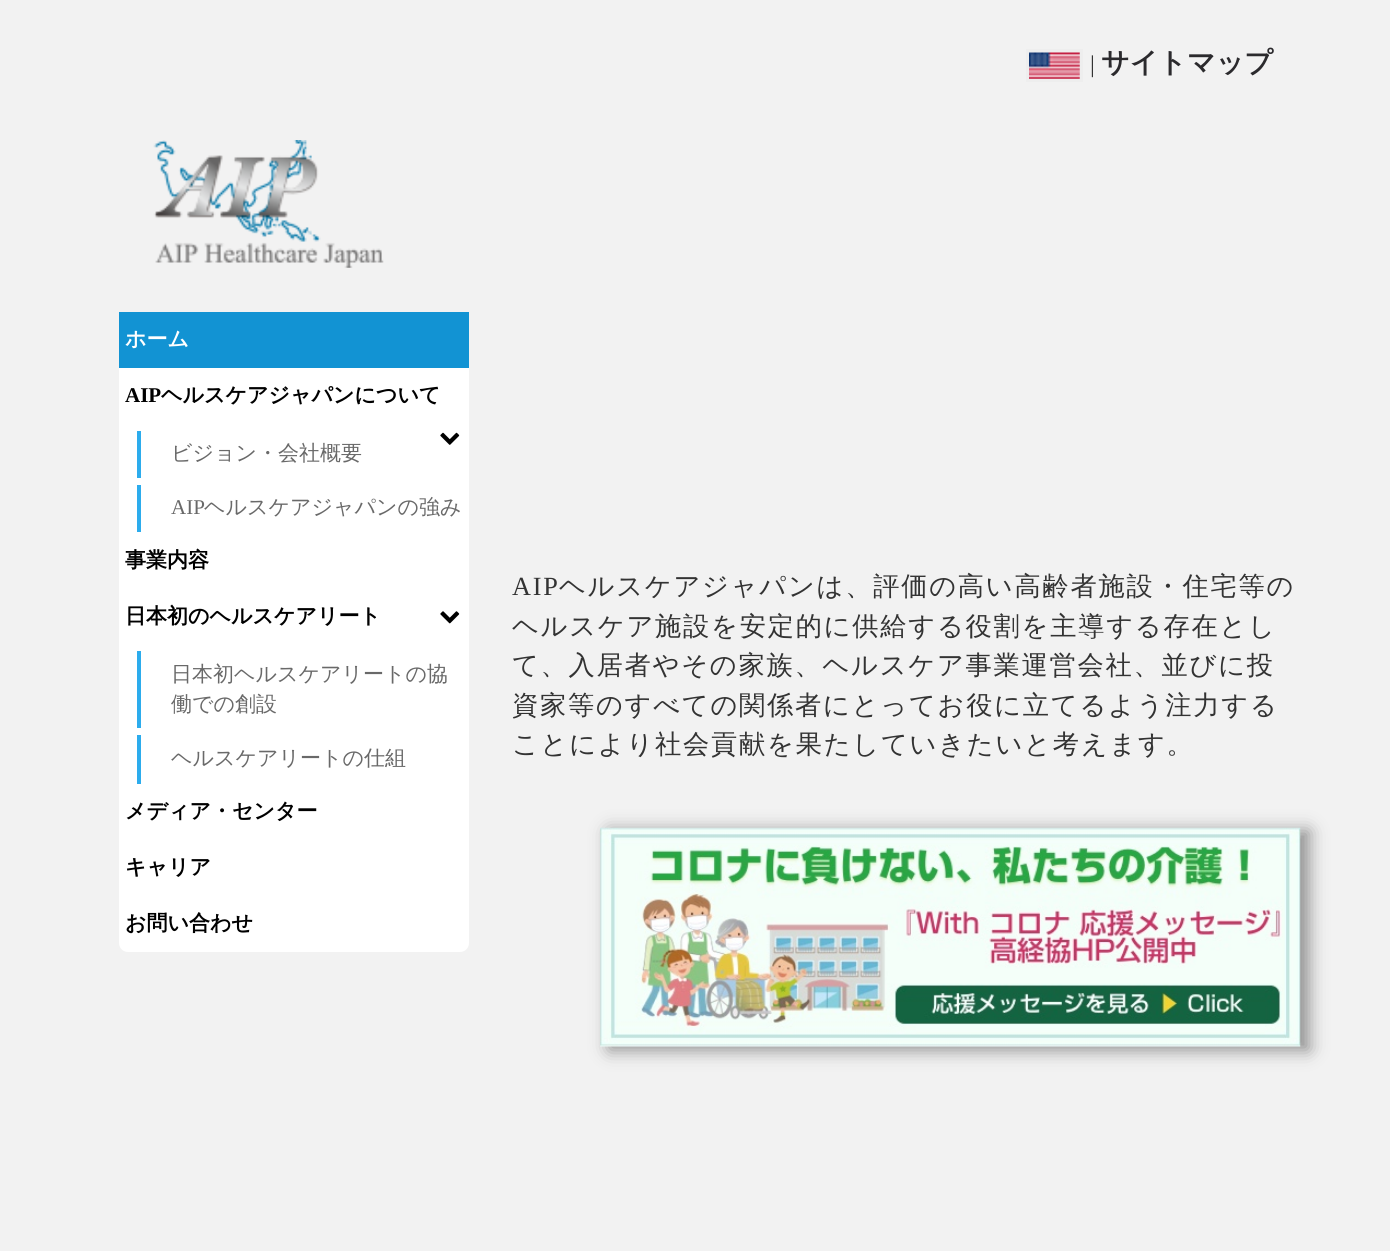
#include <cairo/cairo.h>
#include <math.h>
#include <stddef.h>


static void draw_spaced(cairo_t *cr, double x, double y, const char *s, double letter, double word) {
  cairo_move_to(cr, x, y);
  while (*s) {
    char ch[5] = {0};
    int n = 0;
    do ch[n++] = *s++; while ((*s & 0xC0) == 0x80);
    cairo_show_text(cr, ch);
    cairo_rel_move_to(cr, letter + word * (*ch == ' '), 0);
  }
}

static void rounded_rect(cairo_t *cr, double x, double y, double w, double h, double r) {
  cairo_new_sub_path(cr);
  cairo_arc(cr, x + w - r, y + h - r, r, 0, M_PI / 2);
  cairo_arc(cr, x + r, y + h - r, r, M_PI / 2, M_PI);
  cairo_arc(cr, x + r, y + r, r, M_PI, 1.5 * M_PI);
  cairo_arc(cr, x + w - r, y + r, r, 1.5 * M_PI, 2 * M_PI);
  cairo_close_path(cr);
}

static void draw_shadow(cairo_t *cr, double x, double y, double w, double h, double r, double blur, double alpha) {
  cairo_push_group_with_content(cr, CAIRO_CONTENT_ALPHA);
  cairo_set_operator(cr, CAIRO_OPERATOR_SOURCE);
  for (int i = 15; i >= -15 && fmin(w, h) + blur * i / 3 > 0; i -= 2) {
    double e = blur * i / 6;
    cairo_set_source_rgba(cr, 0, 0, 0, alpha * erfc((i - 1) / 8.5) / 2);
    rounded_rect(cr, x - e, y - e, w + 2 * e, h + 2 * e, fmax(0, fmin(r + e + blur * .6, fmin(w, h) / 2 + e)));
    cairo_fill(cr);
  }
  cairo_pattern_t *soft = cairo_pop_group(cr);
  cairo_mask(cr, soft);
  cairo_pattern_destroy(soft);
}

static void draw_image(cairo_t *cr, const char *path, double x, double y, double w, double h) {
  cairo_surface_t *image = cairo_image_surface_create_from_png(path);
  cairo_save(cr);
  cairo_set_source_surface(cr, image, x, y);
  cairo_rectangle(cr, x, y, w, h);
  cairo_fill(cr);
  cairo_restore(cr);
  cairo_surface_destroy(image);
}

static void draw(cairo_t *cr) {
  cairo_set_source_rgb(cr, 242 / 255.0, 242 / 255.0, 242 / 255.0);
  cairo_paint(cr);
  cairo_rectangle(cr, 1028, 51, 53, 29);
  cairo_set_source_rgb(cr, 238 / 255.0, 238 / 255.0, 238 / 255.0);
  cairo_set_line_width(cr, 4);
  cairo_stroke(cr);
  draw_image(cr, "images/1.png", 1029, 52, 51, 27);
  draw_image(cr, "images/2.png", 153, 140, 231, 128);
  cairo_set_source_rgb(cr, 1, 1, 1);
  rounded_rect(cr, 119, 312, 350, 640, 9);
  cairo_fill(cr);
  cairo_set_source_rgb(cr, 18 / 255.0, 147 / 255.0, 211 / 255.0);
  cairo_rectangle(cr, 119, 312, 350, 56);
  cairo_fill(cr);
  draw_image(cr, "images/3.png", 440, 432, 20, 13);
  cairo_set_source_rgb(cr, 44 / 255.0, 172 / 255.0, 237 / 255.0);
  cairo_rectangle(cr, 137, 431, 4, 47);
  cairo_fill(cr);
  cairo_rectangle(cr, 137, 485, 4, 47);
  cairo_fill(cr);
  draw_image(cr, "images/4.png", 440, 611, 20, 13);
  cairo_rectangle(cr, 137, 651, 4, 77);
  cairo_fill(cr);
  cairo_rectangle(cr, 137, 735, 4, 49);
  cairo_fill(cr);
  cairo_set_source_rgb(cr, 142 / 255.0, 142 / 255.0, 142 / 255.0);
  draw_shadow(cr, 609, 831, 700, 219, 0, 9, 1);
  draw_image(cr, "images/5.png", 600, 827, 701, 220);
  cairo_select_font_face(cr, "WenQuanYi Zen Hei", CAIRO_FONT_SLANT_NORMAL, CAIRO_FONT_WEIGHT_BOLD);
  cairo_set_font_size(cr, 28);
  cairo_set_source_rgb(cr, 43 / 255.0, 42 / 255.0, 45 / 255.0);
  cairo_move_to(cr, 1101, 72);
  cairo_show_text(cr, "サイトマップ");
  cairo_select_font_face(cr, "Liberation Serif", CAIRO_FONT_SLANT_NORMAL, CAIRO_FONT_WEIGHT_NORMAL);
  cairo_set_font_size(cr, 24);
  cairo_set_source_rgb(cr, 51 / 255.0, 51 / 255.0, 51 / 255.0);
  cairo_move_to(cr, 1090, 72);
  cairo_show_text(cr, "|");
  cairo_select_font_face(cr, "WenQuanYi Zen Hei", CAIRO_FONT_SLANT_NORMAL, CAIRO_FONT_WEIGHT_BOLD);
  cairo_set_font_size(cr, 21);
  cairo_set_source_rgb(cr, 1, 1, 1);
  cairo_move_to(cr, 125, 346);
  cairo_show_text(cr, "ホーム");
  cairo_select_font_face(cr, "Liberation Serif", CAIRO_FONT_SLANT_NORMAL, CAIRO_FONT_WEIGHT_BOLD);
  cairo_set_source_rgb(cr, 0, 0, 0);
  cairo_move_to(cr, 125, 402);
  cairo_show_text(cr, "AIP");
  cairo_select_font_face(cr, "WenQuanYi Zen Hei", CAIRO_FONT_SLANT_NORMAL, CAIRO_FONT_WEIGHT_BOLD);
  cairo_move_to(cr, 161, 402);
  cairo_show_text(cr, "ヘルスケアジャパンについて");
  cairo_select_font_face(cr, "WenQuanYi Zen Hei Medium", CAIRO_FONT_SLANT_NORMAL, CAIRO_FONT_WEIGHT_NORMAL);
  cairo_set_source_rgb(cr, 105 / 255.0, 105 / 255.0, 105 / 255.0);
  cairo_move_to(cr, 171, 460);
  cairo_show_text(cr, "ビジョン・会社概要");
  cairo_select_font_face(cr, "Liberation Serif", CAIRO_FONT_SLANT_NORMAL, CAIRO_FONT_WEIGHT_NORMAL);
  cairo_move_to(cr, 171, 514);
  cairo_show_text(cr, "AIP");
  cairo_select_font_face(cr, "WenQuanYi Zen Hei Medium", CAIRO_FONT_SLANT_NORMAL, CAIRO_FONT_WEIGHT_NORMAL);
  cairo_move_to(cr, 204, 514);
  cairo_show_text(cr, "ヘルスケアジャパンの強み");
  cairo_select_font_face(cr, "WenQuanYi Zen Hei", CAIRO_FONT_SLANT_NORMAL, CAIRO_FONT_WEIGHT_BOLD);
  cairo_set_source_rgb(cr, 0, 0, 0);
  cairo_move_to(cr, 125, 567);
  cairo_show_text(cr, "事業内容");
  cairo_move_to(cr, 125, 623);
  cairo_show_text(cr, "日本初のヘルスケアリート");
  cairo_select_font_face(cr, "WenQuanYi Zen Hei Medium", CAIRO_FONT_SLANT_NORMAL, CAIRO_FONT_WEIGHT_NORMAL);
  cairo_set_source_rgb(cr, 105 / 255.0, 105 / 255.0, 105 / 255.0);
  cairo_move_to(cr, 171, 681);
  cairo_show_text(cr, "日本初ヘルスケアリートの協");
  cairo_move_to(cr, 171, 711);
  cairo_show_text(cr, "働での創設");
  cairo_move_to(cr, 171, 765);
  cairo_show_text(cr, "ヘルスケアリートの仕組");
  cairo_select_font_face(cr, "WenQuanYi Zen Hei", CAIRO_FONT_SLANT_NORMAL, CAIRO_FONT_WEIGHT_BOLD);
  cairo_set_source_rgb(cr, 0, 0, 0);
  cairo_move_to(cr, 125, 818);
  cairo_show_text(cr, "メディア・センター");
  cairo_move_to(cr, 125, 874);
  cairo_show_text(cr, "キャリア");
  cairo_move_to(cr, 125, 930);
  cairo_show_text(cr, "お問い合わせ");
  cairo_select_font_face(cr, "Liberation Serif", CAIRO_FONT_SLANT_NORMAL, CAIRO_FONT_WEIGHT_NORMAL);
  cairo_set_font_size(cr, 26.25);
  cairo_set_source_rgb(cr, 51 / 255.0, 51 / 255.0, 51 / 255.0);
  draw_spaced(cr, 512, 595, "AIP", 1.75, 0);
  cairo_select_font_face(cr, "WenQuanYi Zen Hei Medium", CAIRO_FONT_SLANT_NORMAL, CAIRO_FONT_WEIGHT_NORMAL);
  draw_spaced(cr, 559, 595, "ヘルスケアジャパンは、評価の高い高齢者施設・住宅等の", 1.75, 0);
  draw_spaced(cr, 512, 635, "ヘルスケア施設を安定的に供給する役割を主導する存在とし", 1.75, 0);
  draw_spaced(cr, 512, 674, "て、入居者やその家族、ヘルスケア事業運営会社、並びに投", 1.75, 0);
  draw_spaced(cr, 512, 714, "資家等のすべての関係者にとってお役に立てるよう注力する", 1.75, 0);
  draw_spaced(cr, 512, 753, "ことにより社会貢献を果たしていきたいと考えます。", 1.75, 0);
}

int main(void) {
  cairo_surface_t *surface = cairo_image_surface_create(CAIRO_FORMAT_RGB24, 1390, 1251);
  cairo_t *cr = cairo_create(surface);
  cairo_font_options_t *options = cairo_font_options_create();
  cairo_font_options_set_hint_metrics(options, CAIRO_HINT_METRICS_OFF);
  cairo_font_options_set_hint_style(options, CAIRO_HINT_STYLE_NONE);
  cairo_set_font_options(cr, options);
  cairo_set_miter_limit(cr, 4);
  draw(cr);
  cairo_surface_write_to_png(surface, "out.png");
  cairo_font_options_destroy(options);
  cairo_destroy(cr);
  cairo_surface_destroy(surface);
  return 0;
}
